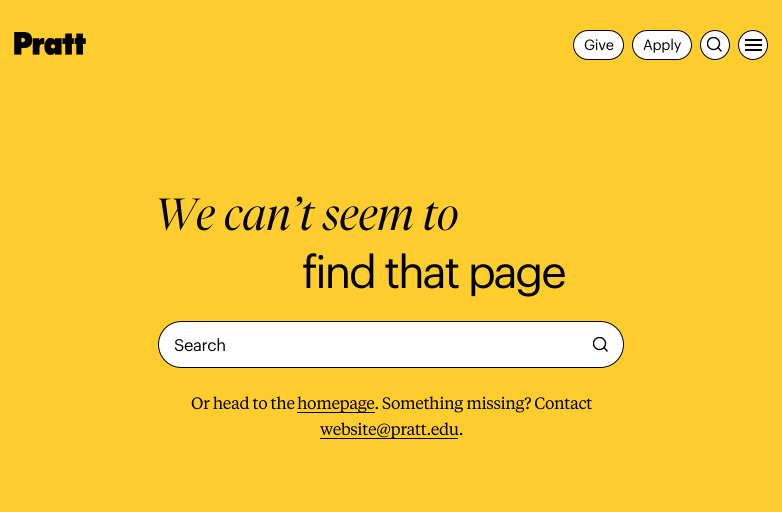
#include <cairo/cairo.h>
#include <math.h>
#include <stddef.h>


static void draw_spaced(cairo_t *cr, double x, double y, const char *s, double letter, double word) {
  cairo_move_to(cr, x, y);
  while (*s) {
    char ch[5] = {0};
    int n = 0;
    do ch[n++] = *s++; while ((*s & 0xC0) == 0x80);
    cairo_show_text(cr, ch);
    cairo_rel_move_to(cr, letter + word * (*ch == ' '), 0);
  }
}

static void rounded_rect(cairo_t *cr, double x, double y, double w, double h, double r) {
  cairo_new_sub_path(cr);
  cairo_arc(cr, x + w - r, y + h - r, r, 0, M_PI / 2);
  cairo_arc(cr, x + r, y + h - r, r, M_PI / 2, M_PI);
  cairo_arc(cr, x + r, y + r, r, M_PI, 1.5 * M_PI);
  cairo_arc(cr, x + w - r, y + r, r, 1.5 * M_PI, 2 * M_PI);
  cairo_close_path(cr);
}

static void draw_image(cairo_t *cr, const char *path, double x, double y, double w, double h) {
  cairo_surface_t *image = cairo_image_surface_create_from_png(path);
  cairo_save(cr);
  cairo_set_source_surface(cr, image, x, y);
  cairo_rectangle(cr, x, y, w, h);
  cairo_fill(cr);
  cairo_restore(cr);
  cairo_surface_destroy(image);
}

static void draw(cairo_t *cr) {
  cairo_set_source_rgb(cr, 1, 206 / 255.0, 46 / 255.0);
  cairo_paint(cr);
  draw_image(cr, "images/1.png", 14, 32, 72, 23);
  cairo_set_source_rgb(cr, 1, 1, 1);
  rounded_rect(cr, 573.5, 30.5, 50, 29, 14.5);
  cairo_fill_preserve(cr);
  cairo_set_source_rgb(cr, 0, 0, 0);
  cairo_set_line_width(cr, 1);
  cairo_stroke(cr);
  cairo_set_source_rgb(cr, 1, 1, 1);
  rounded_rect(cr, 632.5, 30.5, 59, 29, 14.5);
  cairo_fill_preserve(cr);
  cairo_set_source_rgb(cr, 0, 0, 0);
  cairo_stroke(cr);
  cairo_set_source_rgb(cr, 1, 1, 1);
  cairo_arc(cr, 715, 45, 14.5, 0, 2 * M_PI);
  cairo_fill_preserve(cr);
  cairo_set_source_rgb(cr, 0, 0, 0);
  cairo_stroke(cr);
  cairo_save(cr);
  cairo_rectangle(cr, 707, 37, 16, 16);
  cairo_clip(cr);
  cairo_arc(cr, 713.5, 43.5, 6, 0, 2 * M_PI);
  cairo_set_line_width(cr, 1.4);
  cairo_stroke(cr);
  cairo_restore(cr);
  cairo_new_path(cr);
  cairo_move_to(cr, 717.5, 47);
  cairo_line_to(cr, 721.5, 51.5);
  cairo_set_line_width(cr, 1.4);
  cairo_stroke(cr);
  cairo_set_source_rgb(cr, 1, 1, 1);
  cairo_arc(cr, 753, 45, 14.5, 0, 2 * M_PI);
  cairo_fill_preserve(cr);
  cairo_set_source_rgb(cr, 0, 0, 0);
  cairo_set_line_width(cr, 1);
  cairo_stroke(cr);
  cairo_rectangle(cr, 745, 44, 17, 2);
  cairo_fill(cr);
  cairo_rectangle(cr, 745, 39, 17, 2);
  cairo_fill(cr);
  cairo_rectangle(cr, 745, 49, 17, 2);
  cairo_fill(cr);
  cairo_set_source_rgb(cr, 1, 1, 1);
  rounded_rect(cr, 158.5, 321.5, 465, 46, 23);
  cairo_fill_preserve(cr);
  cairo_set_source_rgb(cr, 0, 0, 0);
  cairo_stroke(cr);
  cairo_save(cr);
  cairo_rectangle(cr, 593, 337, 16, 16);
  cairo_clip(cr);
  cairo_arc(cr, 599.5, 343.5, 6, 0, 2 * M_PI);
  cairo_set_line_width(cr, 1.4);
  cairo_stroke(cr);
  cairo_restore(cr);
  cairo_new_path(cr);
  cairo_move_to(cr, 603.5, 347);
  cairo_line_to(cr, 607.5, 351.5);
  cairo_set_line_width(cr, 1.4);
  cairo_stroke(cr);
  cairo_rectangle(cr, 297, 412, 78, 1);
  cairo_fill(cr);
  cairo_rectangle(cr, 320, 438, 138, 1);
  cairo_fill(cr);
  cairo_select_font_face(cr, "Graphik", CAIRO_FONT_SLANT_NORMAL, CAIRO_FONT_WEIGHT_NORMAL);
  cairo_set_font_size(cr, 14.5);
  draw_spaced(cr, 584, 50, "Give", -0.25, 0);
  draw_spaced(cr, 643, 50, "Apply", -0.25, 0);
  cairo_select_font_face(cr, "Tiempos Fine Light", CAIRO_FONT_SLANT_ITALIC, CAIRO_FONT_WEIGHT_NORMAL);
  cairo_set_font_size(cr, 44.75);
  cairo_move_to(cr, 155, 230);
  cairo_show_text(cr, "We can’t seem to");
  cairo_select_font_face(cr, "Graphik", CAIRO_FONT_SLANT_NORMAL, CAIRO_FONT_WEIGHT_NORMAL);
  draw_spaced(cr, 302, 288, "find that page", -2.25, 0);
  cairo_set_font_size(cr, 16.5);
  draw_spaced(cr, 174, 351, "Search", -0.4, 0);
  cairo_select_font_face(cr, "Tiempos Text", CAIRO_FONT_SLANT_NORMAL, CAIRO_FONT_WEIGHT_NORMAL);
  draw_spaced(cr, 191, 409, "Or head to the", -0.4, 0);
  draw_spaced(cr, 297, 409, "homepage. Something missing? Contact", -0.4, 0);
  draw_spaced(cr, 320, 435, "website@pratt.edu.", -0.4, 0);
}

int main(void) {
  cairo_surface_t *surface = cairo_image_surface_create(CAIRO_FORMAT_RGB24, 782, 512);
  cairo_t *cr = cairo_create(surface);
  cairo_font_options_t *options = cairo_font_options_create();
  cairo_font_options_set_hint_metrics(options, CAIRO_HINT_METRICS_OFF);
  cairo_font_options_set_hint_style(options, CAIRO_HINT_STYLE_NONE);
  cairo_set_font_options(cr, options);
  cairo_set_miter_limit(cr, 4);
  draw(cr);
  cairo_surface_write_to_png(surface, "out.png");
  cairo_font_options_destroy(options);
  cairo_destroy(cr);
  cairo_surface_destroy(surface);
  return 0;
}
